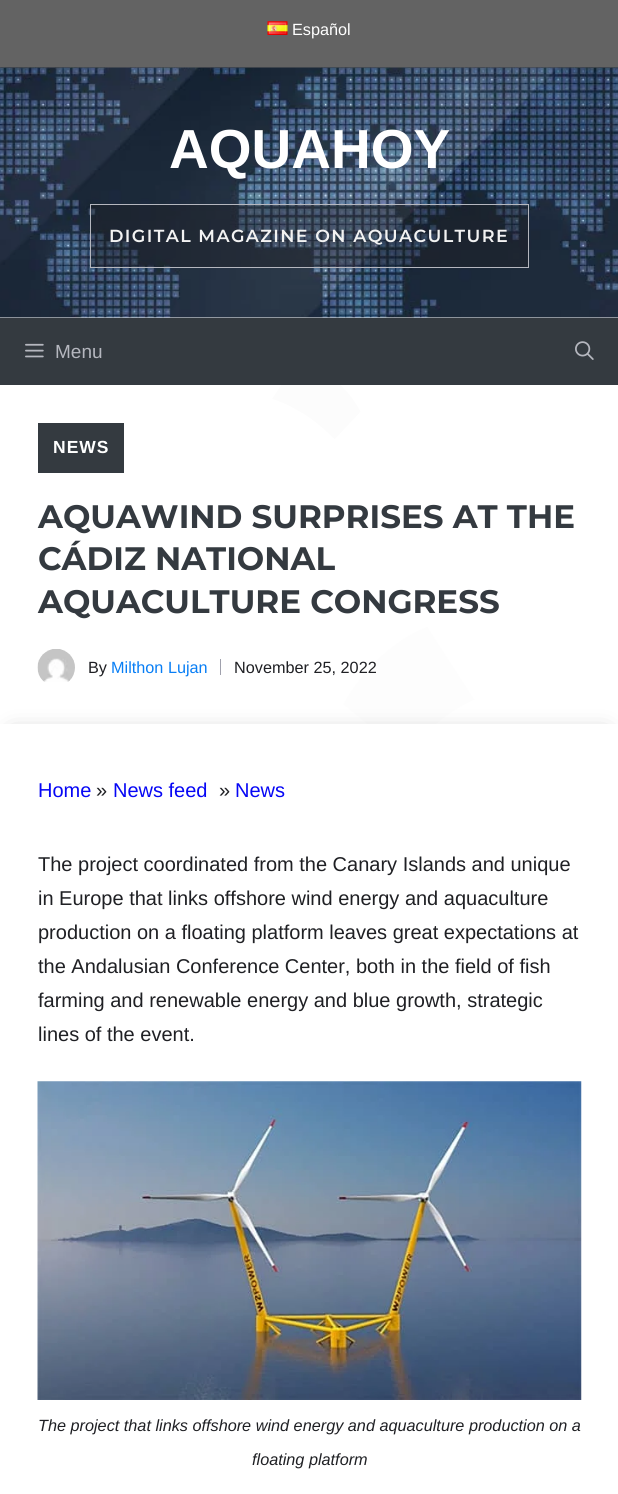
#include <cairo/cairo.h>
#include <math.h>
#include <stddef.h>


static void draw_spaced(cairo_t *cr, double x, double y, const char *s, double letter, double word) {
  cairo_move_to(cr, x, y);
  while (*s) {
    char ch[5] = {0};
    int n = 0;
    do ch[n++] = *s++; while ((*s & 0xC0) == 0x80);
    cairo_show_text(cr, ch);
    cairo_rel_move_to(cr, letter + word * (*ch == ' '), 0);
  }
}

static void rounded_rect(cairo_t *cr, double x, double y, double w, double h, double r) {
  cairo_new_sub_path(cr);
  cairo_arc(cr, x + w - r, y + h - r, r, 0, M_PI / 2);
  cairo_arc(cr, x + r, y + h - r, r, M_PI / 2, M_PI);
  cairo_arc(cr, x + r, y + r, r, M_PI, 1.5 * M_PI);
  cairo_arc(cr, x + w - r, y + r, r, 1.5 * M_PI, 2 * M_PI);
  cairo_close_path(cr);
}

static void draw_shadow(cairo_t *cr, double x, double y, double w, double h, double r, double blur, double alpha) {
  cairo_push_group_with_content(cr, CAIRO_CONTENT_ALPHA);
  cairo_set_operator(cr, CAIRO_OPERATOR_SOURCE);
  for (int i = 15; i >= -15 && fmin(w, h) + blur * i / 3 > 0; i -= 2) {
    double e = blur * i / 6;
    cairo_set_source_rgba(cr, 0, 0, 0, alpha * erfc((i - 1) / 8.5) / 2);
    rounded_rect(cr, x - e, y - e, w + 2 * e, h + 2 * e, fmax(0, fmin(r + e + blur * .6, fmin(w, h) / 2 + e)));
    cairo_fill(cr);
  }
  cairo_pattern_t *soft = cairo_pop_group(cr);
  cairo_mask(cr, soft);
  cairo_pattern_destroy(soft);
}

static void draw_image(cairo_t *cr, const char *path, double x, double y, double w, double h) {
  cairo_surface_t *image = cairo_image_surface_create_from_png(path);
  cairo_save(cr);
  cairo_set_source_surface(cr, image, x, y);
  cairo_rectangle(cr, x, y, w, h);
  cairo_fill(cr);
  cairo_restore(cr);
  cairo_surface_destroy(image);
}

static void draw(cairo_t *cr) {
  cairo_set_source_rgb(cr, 1, 1, 1);
  cairo_paint(cr);
  draw_image(cr, "images/1.png", 272, 385, 203, 339);
  cairo_set_source_rgb(cr, 99 / 255.0, 99 / 255.0, 99 / 255.0);
  cairo_rectangle(cr, 0, 0, 618, 68);
  cairo_fill(cr);
  draw_image(cr, "images/2.png", 267, 21, 21, 14);
  draw_image(cr, "images/3.png", 0, 67, 618, 251);
  cairo_set_source_rgba(cr, 31 / 255.0, 32 / 255.0, 36 / 255.0, 0.4);
  cairo_rectangle(cr, 90.5, 204.5, 438, 63);
  cairo_fill_preserve(cr);
  cairo_set_source_rgb(cr, 181 / 255.0, 183 / 255.0, 191 / 255.0);
  cairo_set_line_width(cr, 1);
  cairo_stroke(cr);
  cairo_set_source_rgb(cr, 52 / 255.0, 58 / 255.0, 64 / 255.0);
  cairo_rectangle(cr, 0, 318, 618, 67);
  cairo_fill(cr);
  draw_image(cr, "images/4.png", 25, 343, 19, 15);
  draw_image(cr, "images/5.png", 575, 341, 19, 19);
  cairo_set_source_rgba(cr, 1, 1, 1, 0.9);
  cairo_rectangle(cr, 272, 385, 203, 339);
  cairo_fill(cr);
  cairo_set_source_rgb(cr, 52 / 255.0, 58 / 255.0, 64 / 255.0);
  cairo_rectangle(cr, 38, 423, 86, 50);
  cairo_fill(cr);
  draw_image(cr, "images/6.png", 37, 649, 38, 33);
  cairo_set_source_rgb(cr, 160 / 255.0, 161 / 255.0, 173 / 255.0);
  cairo_rectangle(cr, 220, 659, 1, 16);
  cairo_fill(cr);
  cairo_set_source_rgb(cr, 0, 0, 0);
  draw_shadow(cr, 13, 736, 593, 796, 0, 12.5, 0.3);
  cairo_set_source_rgb(cr, 1, 1, 1);
  cairo_rectangle(cr, 0, 724, 618, 770);
  cairo_fill(cr);
  draw_image(cr, "images/7.png", 37, 1081, 545, 319);
  cairo_select_font_face(cr, "Liberation Sans", CAIRO_FONT_SLANT_NORMAL, CAIRO_FONT_WEIGHT_NORMAL);
  cairo_set_font_size(cr, 16.25);
  cairo_move_to(cr, 292, 35);
  cairo_show_text(cr, "Español");
  cairo_select_font_face(cr, "Liberation Sans", CAIRO_FONT_SLANT_NORMAL, CAIRO_FONT_WEIGHT_BOLD);
  cairo_set_font_size(cr, 55);
  cairo_move_to(cr, 169, 168);
  cairo_show_text(cr, "AQUAHOY");
  cairo_select_font_face(cr, "Montserrat SemiBold", CAIRO_FONT_SLANT_NORMAL, CAIRO_FONT_WEIGHT_NORMAL);
  cairo_set_font_size(cr, 17.5);
  cairo_set_source_rgb(cr, 242 / 255.0, 242 / 255.0, 242 / 255.0);
  draw_spaced(cr, 109, 242, "DIGITAL MAGAZINE ON AQUACULTURE", 1.4, 0);
  cairo_select_font_face(cr, "Liberation Sans", CAIRO_FONT_SLANT_NORMAL, CAIRO_FONT_WEIGHT_NORMAL);
  cairo_set_font_size(cr, 19);
  cairo_set_source_rgb(cr, 181 / 255.0, 183 / 255.0, 191 / 255.0);
  cairo_move_to(cr, 55, 358);
  cairo_show_text(cr, "Menu");
  cairo_select_font_face(cr, "Liberation Sans", CAIRO_FONT_SLANT_NORMAL, CAIRO_FONT_WEIGHT_BOLD);
  cairo_set_font_size(cr, 17.5);
  cairo_set_source_rgb(cr, 1, 1, 1);
  draw_spaced(cr, 53, 453, "NEWS", 1, 0);
  cairo_select_font_face(cr, "Montserrat", CAIRO_FONT_SLANT_NORMAL, CAIRO_FONT_WEIGHT_BOLD);
  cairo_set_font_size(cr, 32.5);
  cairo_set_source_rgb(cr, 52 / 255.0, 58 / 255.0, 64 / 255.0);
  cairo_move_to(cr, 38, 528);
  cairo_show_text(cr, "AQUAWIND SURPRISES AT THE");
  cairo_move_to(cr, 38, 570);
  cairo_show_text(cr, "CÁDIZ NATIONAL");
  cairo_move_to(cr, 38, 613);
  cairo_show_text(cr, "AQUACULTURE CONGRESS");
  cairo_select_font_face(cr, "Liberation Sans", CAIRO_FONT_SLANT_NORMAL, CAIRO_FONT_WEIGHT_NORMAL);
  cairo_set_font_size(cr, 16.25);
  cairo_set_source_rgb(cr, 31 / 255.0, 32 / 255.0, 36 / 255.0);
  cairo_move_to(cr, 88, 673);
  cairo_show_text(cr, "By");
  cairo_set_source_rgb(cr, 8 / 255.0, 126 / 255.0, 245 / 255.0);
  cairo_move_to(cr, 111, 673);
  cairo_show_text(cr, "Milthon Lujan");
  cairo_set_source_rgb(cr, 31 / 255.0, 32 / 255.0, 36 / 255.0);
  cairo_move_to(cr, 234, 673);
  cairo_show_text(cr, "November 25, 2022");
  cairo_set_font_size(cr, 20);
  cairo_set_source_rgb(cr, 6 / 255.0, 6 / 255.0, 245 / 255.0);
  cairo_move_to(cr, 38, 797);
  cairo_show_text(cr, "Home");
  cairo_set_source_rgb(cr, 31 / 255.0, 32 / 255.0, 36 / 255.0);
  cairo_move_to(cr, 96, 797);
  cairo_show_text(cr, "»");
  cairo_set_source_rgb(cr, 6 / 255.0, 6 / 255.0, 245 / 255.0);
  cairo_move_to(cr, 113, 797);
  cairo_show_text(cr, "News feed");
  cairo_set_source_rgb(cr, 31 / 255.0, 32 / 255.0, 36 / 255.0);
  cairo_move_to(cr, 219, 797);
  cairo_show_text(cr, "»");
  cairo_set_source_rgb(cr, 6 / 255.0, 6 / 255.0, 245 / 255.0);
  cairo_move_to(cr, 235, 797);
  cairo_show_text(cr, "News");
  cairo_set_source_rgb(cr, 31 / 255.0, 32 / 255.0, 36 / 255.0);
  cairo_move_to(cr, 38, 871);
  cairo_show_text(cr, "The project coordinated from the Canary Islands and unique");
  cairo_move_to(cr, 38, 905);
  cairo_show_text(cr, "in Europe that links offshore wind energy and aquaculture");
  cairo_move_to(cr, 38, 939);
  cairo_show_text(cr, "production on a floating platform leaves great expectations at");
  cairo_move_to(cr, 38, 973);
  cairo_show_text(cr, "the Andalusian Conference Center, both in the field of fish");
  cairo_move_to(cr, 38, 1007);
  cairo_show_text(cr, "farming and renewable energy and blue growth, strategic");
  cairo_move_to(cr, 38, 1041);
  cairo_show_text(cr, "lines of the event.");
  cairo_select_font_face(cr, "Liberation Sans", CAIRO_FONT_SLANT_ITALIC, CAIRO_FONT_WEIGHT_NORMAL);
  cairo_set_font_size(cr, 16.25);
  cairo_move_to(cr, 38, 1431);
  cairo_show_text(cr, "The project that links offshore wind energy and aquaculture production on a");
  cairo_move_to(cr, 252, 1465);
  cairo_show_text(cr, "floating platform");
}

int main(void) {
  cairo_surface_t *surface = cairo_image_surface_create(CAIRO_FORMAT_RGB24, 618, 1494);
  cairo_t *cr = cairo_create(surface);
  cairo_font_options_t *options = cairo_font_options_create();
  cairo_font_options_set_hint_metrics(options, CAIRO_HINT_METRICS_OFF);
  cairo_font_options_set_hint_style(options, CAIRO_HINT_STYLE_NONE);
  cairo_set_font_options(cr, options);
  cairo_set_miter_limit(cr, 4);
  draw(cr);
  cairo_surface_write_to_png(surface, "out.png");
  cairo_font_options_destroy(options);
  cairo_destroy(cr);
  cairo_surface_destroy(surface);
  return 0;
}
